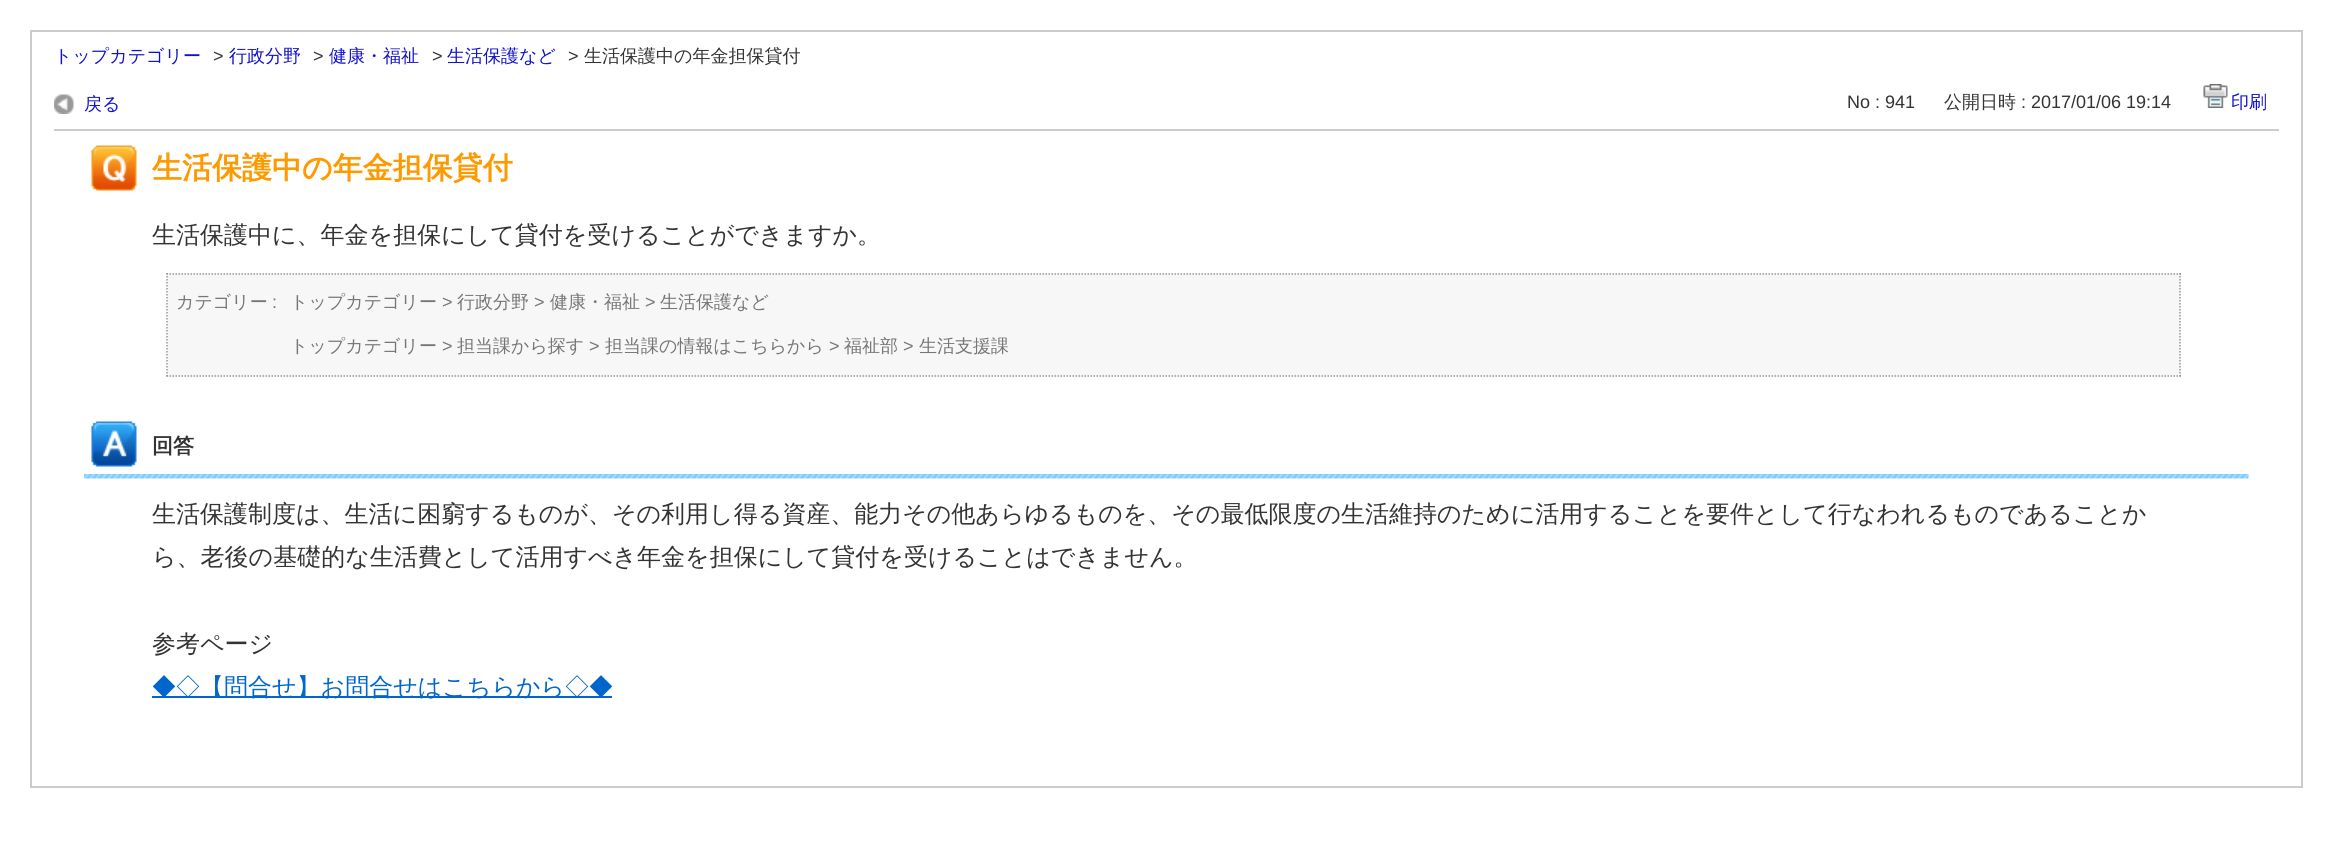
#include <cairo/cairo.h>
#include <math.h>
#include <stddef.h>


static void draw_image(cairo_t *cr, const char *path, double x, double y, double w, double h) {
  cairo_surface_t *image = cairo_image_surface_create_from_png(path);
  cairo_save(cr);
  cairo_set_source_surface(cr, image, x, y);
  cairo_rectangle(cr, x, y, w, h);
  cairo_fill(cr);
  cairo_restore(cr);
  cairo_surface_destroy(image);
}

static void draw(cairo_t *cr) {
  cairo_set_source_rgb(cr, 1, 1, 1);
  cairo_paint(cr);
  cairo_rectangle(cr, 31, 31, 2271, 756);
  cairo_set_source_rgb(cr, 204 / 255.0, 204 / 255.0, 204 / 255.0);
  cairo_stroke(cr);
  cairo_rectangle(cr, 54, 129, 2225, 2);
  cairo_fill(cr);
  draw_image(cr, "images/1.png", 54, 94, 20, 20);
  draw_image(cr, "images/2.png", 2203, 84, 25, 24);
  draw_image(cr, "images/3.png", 91, 145, 46, 46);
  cairo_set_source_rgb(cr, 247 / 255.0, 247 / 255.0, 247 / 255.0);
  cairo_rectangle(cr, 167, 273, 2014, 104);
  cairo_fill(cr);
  cairo_new_path(cr);
  cairo_move_to(cr, 166.5, 274);
  cairo_line_to(cr, 2181, 274);
  cairo_set_source_rgb(cr, 153 / 255.0, 153 / 255.0, 153 / 255.0);
  cairo_set_line_width(cr, 1.5);
  cairo_set_dash(cr, (double[]){1.5, 1.5}, 2, 0);
  cairo_stroke(cr);
  cairo_new_path(cr);
  cairo_move_to(cr, 2180, 273);
  cairo_line_to(cr, 2180, 376.5);
  cairo_stroke(cr);
  cairo_new_path(cr);
  cairo_move_to(cr, 166.5, 376);
  cairo_line_to(cr, 2181, 376);
  cairo_stroke(cr);
  cairo_new_path(cr);
  cairo_move_to(cr, 167, 273);
  cairo_line_to(cr, 167, 376.5);
  cairo_stroke(cr);
  draw_image(cr, "images/4.png", 84, 474, 2165, 5);
  draw_image(cr, "images/5.png", 91, 421, 46, 46);
  cairo_set_source_rgb(cr, 0, 102 / 255.0, 204 / 255.0);
  cairo_rectangle(cr, 152, 696, 460, 2);
  cairo_fill(cr);
  cairo_select_font_face(cr, "WenQuanYi Zen Hei Medium", CAIRO_FONT_SLANT_NORMAL, CAIRO_FONT_WEIGHT_NORMAL);
  cairo_set_font_size(cr, 18);
  cairo_set_source_rgb(cr, 17 / 255.0, 17 / 255.0, 204 / 255.0);
  cairo_move_to(cr, 54, 62);
  cairo_show_text(cr, "トップカテゴリー");
  cairo_select_font_face(cr, "Liberation Sans", CAIRO_FONT_SLANT_NORMAL, CAIRO_FONT_WEIGHT_NORMAL);
  cairo_set_source_rgb(cr, 51 / 255.0, 51 / 255.0, 51 / 255.0);
  cairo_move_to(cr, 213, 62);
  cairo_show_text(cr, ">");
  cairo_select_font_face(cr, "WenQuanYi Zen Hei Medium", CAIRO_FONT_SLANT_NORMAL, CAIRO_FONT_WEIGHT_NORMAL);
  cairo_set_source_rgb(cr, 17 / 255.0, 17 / 255.0, 204 / 255.0);
  cairo_move_to(cr, 229, 62);
  cairo_show_text(cr, "行政分野");
  cairo_select_font_face(cr, "Liberation Sans", CAIRO_FONT_SLANT_NORMAL, CAIRO_FONT_WEIGHT_NORMAL);
  cairo_set_source_rgb(cr, 51 / 255.0, 51 / 255.0, 51 / 255.0);
  cairo_move_to(cr, 313, 62);
  cairo_show_text(cr, ">");
  cairo_select_font_face(cr, "WenQuanYi Zen Hei Medium", CAIRO_FONT_SLANT_NORMAL, CAIRO_FONT_WEIGHT_NORMAL);
  cairo_set_source_rgb(cr, 17 / 255.0, 17 / 255.0, 204 / 255.0);
  cairo_move_to(cr, 329, 62);
  cairo_show_text(cr, "健康・福祉");
  cairo_select_font_face(cr, "Liberation Sans", CAIRO_FONT_SLANT_NORMAL, CAIRO_FONT_WEIGHT_NORMAL);
  cairo_set_source_rgb(cr, 51 / 255.0, 51 / 255.0, 51 / 255.0);
  cairo_move_to(cr, 432, 62);
  cairo_show_text(cr, ">");
  cairo_select_font_face(cr, "WenQuanYi Zen Hei Medium", CAIRO_FONT_SLANT_NORMAL, CAIRO_FONT_WEIGHT_NORMAL);
  cairo_set_source_rgb(cr, 17 / 255.0, 17 / 255.0, 204 / 255.0);
  cairo_move_to(cr, 447, 62);
  cairo_show_text(cr, "生活保護など");
  cairo_select_font_face(cr, "Liberation Sans", CAIRO_FONT_SLANT_NORMAL, CAIRO_FONT_WEIGHT_NORMAL);
  cairo_set_source_rgb(cr, 51 / 255.0, 51 / 255.0, 51 / 255.0);
  cairo_move_to(cr, 568, 62);
  cairo_show_text(cr, ">");
  cairo_select_font_face(cr, "WenQuanYi Zen Hei Medium", CAIRO_FONT_SLANT_NORMAL, CAIRO_FONT_WEIGHT_NORMAL);
  cairo_move_to(cr, 584, 62);
  cairo_show_text(cr, "生活保護中の年金担保貸付");
  cairo_set_source_rgb(cr, 17 / 255.0, 17 / 255.0, 204 / 255.0);
  cairo_move_to(cr, 84, 110);
  cairo_show_text(cr, "戻る");
  cairo_select_font_face(cr, "Liberation Sans", CAIRO_FONT_SLANT_NORMAL, CAIRO_FONT_WEIGHT_NORMAL);
  cairo_set_source_rgb(cr, 51 / 255.0, 51 / 255.0, 51 / 255.0);
  cairo_move_to(cr, 1847, 108);
  cairo_show_text(cr, "No : 941");
  cairo_select_font_face(cr, "WenQuanYi Zen Hei Medium", CAIRO_FONT_SLANT_NORMAL, CAIRO_FONT_WEIGHT_NORMAL);
  cairo_move_to(cr, 1944, 108);
  cairo_show_text(cr, "公開日時");
  cairo_select_font_face(cr, "Liberation Sans", CAIRO_FONT_SLANT_NORMAL, CAIRO_FONT_WEIGHT_NORMAL);
  cairo_move_to(cr, 2021, 108);
  cairo_show_text(cr, ": 2017/01/06 19:14");
  cairo_select_font_face(cr, "WenQuanYi Zen Hei Medium", CAIRO_FONT_SLANT_NORMAL, CAIRO_FONT_WEIGHT_NORMAL);
  cairo_set_source_rgb(cr, 17 / 255.0, 17 / 255.0, 204 / 255.0);
  cairo_move_to(cr, 2231, 108);
  cairo_show_text(cr, "印刷");
  cairo_select_font_face(cr, "WenQuanYi Zen Hei", CAIRO_FONT_SLANT_NORMAL, CAIRO_FONT_WEIGHT_BOLD);
  cairo_set_font_size(cr, 30);
  cairo_set_source_rgb(cr, 1, 153 / 255.0, 0);
  cairo_move_to(cr, 152, 178);
  cairo_show_text(cr, "生活保護中の年金担保貸付");
  cairo_select_font_face(cr, "WenQuanYi Zen Hei Medium", CAIRO_FONT_SLANT_NORMAL, CAIRO_FONT_WEIGHT_NORMAL);
  cairo_set_font_size(cr, 24);
  cairo_set_source_rgb(cr, 51 / 255.0, 51 / 255.0, 51 / 255.0);
  cairo_move_to(cr, 152, 243);
  cairo_show_text(cr, "生活保護中に、年金を担保にして貸付を受けることができますか。");
  cairo_set_font_size(cr, 18);
  cairo_set_source_rgb(cr, 118 / 255.0, 118 / 255.0, 118 / 255.0);
  cairo_move_to(cr, 176, 308);
  cairo_show_text(cr, "カテゴリー");
  cairo_select_font_face(cr, "Liberation Sans", CAIRO_FONT_SLANT_NORMAL, CAIRO_FONT_WEIGHT_NORMAL);
  cairo_move_to(cr, 272, 308);
  cairo_show_text(cr, ":");
  cairo_select_font_face(cr, "WenQuanYi Zen Hei Medium", CAIRO_FONT_SLANT_NORMAL, CAIRO_FONT_WEIGHT_NORMAL);
  cairo_move_to(cr, 290, 308);
  cairo_show_text(cr, "トップカテゴリー");
  cairo_select_font_face(cr, "Liberation Sans", CAIRO_FONT_SLANT_NORMAL, CAIRO_FONT_WEIGHT_NORMAL);
  cairo_move_to(cr, 442, 308);
  cairo_show_text(cr, ">");
  cairo_select_font_face(cr, "WenQuanYi Zen Hei Medium", CAIRO_FONT_SLANT_NORMAL, CAIRO_FONT_WEIGHT_NORMAL);
  cairo_move_to(cr, 457, 308);
  cairo_show_text(cr, "行政分野");
  cairo_select_font_face(cr, "Liberation Sans", CAIRO_FONT_SLANT_NORMAL, CAIRO_FONT_WEIGHT_NORMAL);
  cairo_move_to(cr, 534, 308);
  cairo_show_text(cr, ">");
  cairo_select_font_face(cr, "WenQuanYi Zen Hei Medium", CAIRO_FONT_SLANT_NORMAL, CAIRO_FONT_WEIGHT_NORMAL);
  cairo_move_to(cr, 550, 308);
  cairo_show_text(cr, "健康・福祉");
  cairo_select_font_face(cr, "Liberation Sans", CAIRO_FONT_SLANT_NORMAL, CAIRO_FONT_WEIGHT_NORMAL);
  cairo_move_to(cr, 645, 308);
  cairo_show_text(cr, ">");
  cairo_select_font_face(cr, "WenQuanYi Zen Hei Medium", CAIRO_FONT_SLANT_NORMAL, CAIRO_FONT_WEIGHT_NORMAL);
  cairo_move_to(cr, 660, 308);
  cairo_show_text(cr, "生活保護など");
  cairo_move_to(cr, 290, 352);
  cairo_show_text(cr, "トップカテゴリー");
  cairo_select_font_face(cr, "Liberation Sans", CAIRO_FONT_SLANT_NORMAL, CAIRO_FONT_WEIGHT_NORMAL);
  cairo_move_to(cr, 442, 352);
  cairo_show_text(cr, ">");
  cairo_select_font_face(cr, "WenQuanYi Zen Hei Medium", CAIRO_FONT_SLANT_NORMAL, CAIRO_FONT_WEIGHT_NORMAL);
  cairo_move_to(cr, 457, 352);
  cairo_show_text(cr, "担当課から探す");
  cairo_select_font_face(cr, "Liberation Sans", CAIRO_FONT_SLANT_NORMAL, CAIRO_FONT_WEIGHT_NORMAL);
  cairo_move_to(cr, 589, 352);
  cairo_show_text(cr, ">");
  cairo_select_font_face(cr, "WenQuanYi Zen Hei Medium", CAIRO_FONT_SLANT_NORMAL, CAIRO_FONT_WEIGHT_NORMAL);
  cairo_move_to(cr, 605, 352);
  cairo_show_text(cr, "担当課の情報はこちらから");
  cairo_select_font_face(cr, "Liberation Sans", CAIRO_FONT_SLANT_NORMAL, CAIRO_FONT_WEIGHT_NORMAL);
  cairo_move_to(cr, 829, 352);
  cairo_show_text(cr, ">");
  cairo_select_font_face(cr, "WenQuanYi Zen Hei Medium", CAIRO_FONT_SLANT_NORMAL, CAIRO_FONT_WEIGHT_NORMAL);
  cairo_move_to(cr, 844, 352);
  cairo_show_text(cr, "福祉部");
  cairo_select_font_face(cr, "Liberation Sans", CAIRO_FONT_SLANT_NORMAL, CAIRO_FONT_WEIGHT_NORMAL);
  cairo_move_to(cr, 903, 352);
  cairo_show_text(cr, ">");
  cairo_select_font_face(cr, "WenQuanYi Zen Hei Medium", CAIRO_FONT_SLANT_NORMAL, CAIRO_FONT_WEIGHT_NORMAL);
  cairo_move_to(cr, 919, 352);
  cairo_show_text(cr, "生活支援課");
  cairo_select_font_face(cr, "WenQuanYi Zen Hei", CAIRO_FONT_SLANT_NORMAL, CAIRO_FONT_WEIGHT_BOLD);
  cairo_set_font_size(cr, 21);
  cairo_set_source_rgb(cr, 51 / 255.0, 51 / 255.0, 51 / 255.0);
  cairo_move_to(cr, 152, 453);
  cairo_show_text(cr, "回答");
  cairo_select_font_face(cr, "WenQuanYi Zen Hei Medium", CAIRO_FONT_SLANT_NORMAL, CAIRO_FONT_WEIGHT_NORMAL);
  cairo_set_font_size(cr, 24);
  cairo_move_to(cr, 152, 522);
  cairo_show_text(cr, "生活保護制度は、生活に困窮するものが、その利用し得る資産、能力その他あらゆるものを、その最低限度の生活維持のために活用することを要件として行なわれるものであることか");
  cairo_move_to(cr, 152, 565);
  cairo_show_text(cr, "ら、老後の基礎的な生活費として活用すべき年金を担保にして貸付を受けることはできません。");
  cairo_move_to(cr, 152, 652);
  cairo_show_text(cr, "参考ページ");
  cairo_set_source_rgb(cr, 0, 102 / 255.0, 204 / 255.0);
  cairo_move_to(cr, 152, 695);
  cairo_show_text(cr, "◆◇【問合せ】お問合せはこちらから◇◆");
}

int main(void) {
  cairo_surface_t *surface = cairo_image_surface_create(CAIRO_FORMAT_RGB24, 2332, 851);
  cairo_t *cr = cairo_create(surface);
  cairo_font_options_t *options = cairo_font_options_create();
  cairo_font_options_set_hint_metrics(options, CAIRO_HINT_METRICS_OFF);
  cairo_font_options_set_hint_style(options, CAIRO_HINT_STYLE_NONE);
  cairo_set_font_options(cr, options);
  cairo_set_miter_limit(cr, 4);
  draw(cr);
  cairo_surface_write_to_png(surface, "out.png");
  cairo_font_options_destroy(options);
  cairo_destroy(cr);
  cairo_surface_destroy(surface);
  return 0;
}
